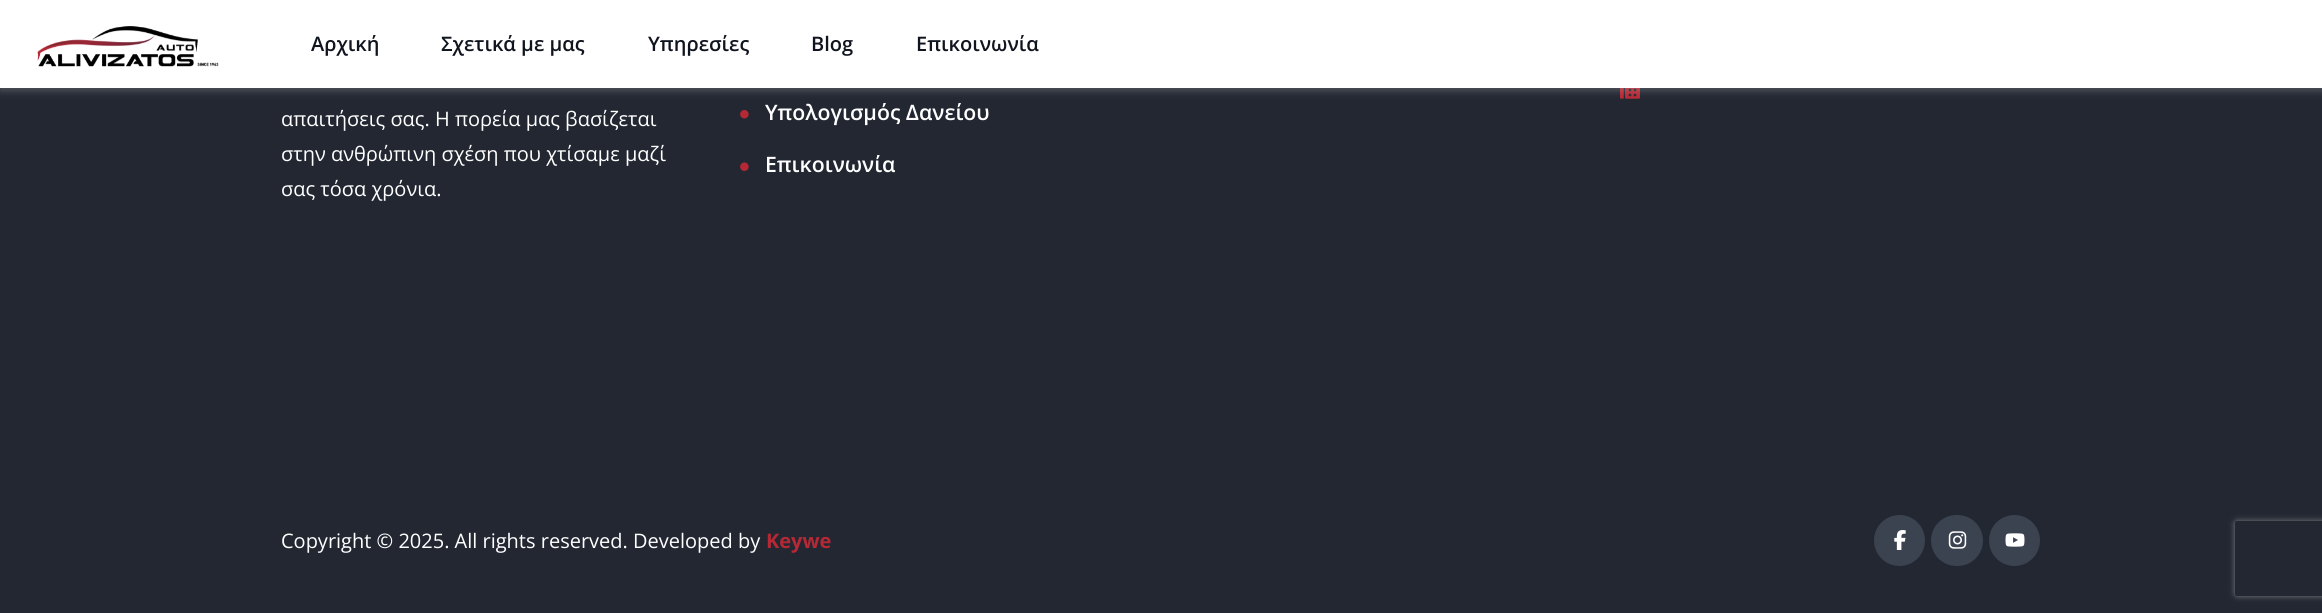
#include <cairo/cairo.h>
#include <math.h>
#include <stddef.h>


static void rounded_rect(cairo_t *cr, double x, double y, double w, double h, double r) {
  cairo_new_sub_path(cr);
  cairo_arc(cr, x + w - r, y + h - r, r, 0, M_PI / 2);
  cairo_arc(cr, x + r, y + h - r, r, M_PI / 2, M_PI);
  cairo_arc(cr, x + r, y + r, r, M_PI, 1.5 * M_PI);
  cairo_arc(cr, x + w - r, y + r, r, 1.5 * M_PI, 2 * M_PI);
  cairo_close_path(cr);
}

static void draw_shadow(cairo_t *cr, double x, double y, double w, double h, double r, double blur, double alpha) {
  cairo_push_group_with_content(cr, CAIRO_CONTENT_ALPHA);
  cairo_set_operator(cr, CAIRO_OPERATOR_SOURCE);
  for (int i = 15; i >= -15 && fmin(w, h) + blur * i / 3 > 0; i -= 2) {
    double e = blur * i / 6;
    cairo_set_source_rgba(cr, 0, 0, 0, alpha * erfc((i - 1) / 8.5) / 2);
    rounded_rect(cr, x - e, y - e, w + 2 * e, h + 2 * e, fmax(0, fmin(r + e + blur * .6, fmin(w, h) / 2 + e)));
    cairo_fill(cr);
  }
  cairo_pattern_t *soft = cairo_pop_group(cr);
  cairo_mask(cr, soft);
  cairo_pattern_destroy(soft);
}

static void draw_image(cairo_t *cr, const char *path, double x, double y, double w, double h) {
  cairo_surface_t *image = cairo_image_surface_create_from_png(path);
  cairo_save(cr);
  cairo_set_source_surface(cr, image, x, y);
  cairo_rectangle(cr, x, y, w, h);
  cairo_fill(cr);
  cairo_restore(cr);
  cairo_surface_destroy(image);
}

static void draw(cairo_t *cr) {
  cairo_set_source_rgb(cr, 34 / 255.0, 39 / 255.0, 50 / 255.0);
  cairo_paint(cr);
  draw_image(cr, "images/2.png", 1620, 88, 20, 11);
  cairo_set_source_rgb(cr, 196 / 255.0, 196 / 255.0, 196 / 255.0);
  draw_shadow(cr, 0, 3, 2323, 87, 0, 4.5, 0.34);
  cairo_set_source_rgb(cr, 1, 1, 1);
  cairo_rectangle(cr, 0, 0, 2322, 88);
  cairo_fill(cr);
  draw_image(cr, "images/1.png", 37, 26, 182, 41);
  draw_image(cr, "images/3.png", 740, 110, 9, 9);
  draw_image(cr, "images/4.png", 740, 162, 9, 9);
  cairo_set_source_rgb(cr, 59 / 255.0, 66 / 255.0, 80 / 255.0);
  cairo_arc(cr, 1899.5, 540.5, 25.5, 0, 2 * M_PI);
  cairo_fill(cr);
  draw_image(cr, "images/5.png", 1894, 530, 12, 20);
  rounded_rect(cr, 1931, 515, 52, 51, 25.5);
  cairo_fill(cr);
  draw_image(cr, "images/6.png", 1948, 531, 19, 18);
  cairo_arc(cr, 2014.5, 540.5, 25.5, 0, 2 * M_PI);
  cairo_fill(cr);
  draw_image(cr, "images/7.png", 2005, 533, 20, 14);
  cairo_save(cr);
  cairo_set_fill_rule(cr, CAIRO_FILL_RULE_EVEN_ODD);
  cairo_new_path(cr);
  cairo_move_to(cr, 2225, 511);
  cairo_line_to(cr, 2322, 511);
  cairo_line_to(cr, 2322, 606);
  cairo_line_to(cr, 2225, 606);
  cairo_close_path(cr);
  cairo_move_to(cr, 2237.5, 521);
  cairo_line_to(cr, 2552.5, 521);
  cairo_curve_to(cr, 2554, 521, 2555, 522, 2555, 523.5);
  cairo_line_to(cr, 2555, 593.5);
  cairo_curve_to(cr, 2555, 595, 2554, 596, 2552.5, 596);
  cairo_line_to(cr, 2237.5, 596);
  cairo_curve_to(cr, 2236, 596, 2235, 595, 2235, 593.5);
  cairo_line_to(cr, 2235, 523.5);
  cairo_curve_to(cr, 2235, 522, 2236, 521, 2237.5, 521);
  cairo_close_path(cr);
  cairo_clip(cr);
  cairo_set_source_rgb(cr, 128 / 255.0, 128 / 255.0, 128 / 255.0);
  draw_shadow(cr, 2235, 521, 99, 75, 2.5, 3, 1);
  cairo_restore(cr);
  cairo_select_font_face(cr, "Open Sans SemiBold", CAIRO_FONT_SLANT_NORMAL, CAIRO_FONT_WEIGHT_NORMAL);
  cairo_set_font_size(cr, 20);
  cairo_set_source_rgb(cr, 15 / 255.0, 20 / 255.0, 30 / 255.0);
  cairo_move_to(cr, 311, 51);
  cairo_show_text(cr, "Αρχική");
  cairo_move_to(cr, 441, 51);
  cairo_show_text(cr, "Σχετικά με μας");
  cairo_move_to(cr, 648, 51);
  cairo_show_text(cr, "Υπηρεσίες");
  cairo_move_to(cr, 811, 51);
  cairo_show_text(cr, "Blog");
  cairo_move_to(cr, 916, 51);
  cairo_show_text(cr, "Επικοινωνία");
  cairo_select_font_face(cr, "Open Sans", CAIRO_FONT_SLANT_NORMAL, CAIRO_FONT_WEIGHT_NORMAL);
  cairo_set_source_rgb(cr, 1, 1, 1);
  cairo_move_to(cr, 281, 126);
  cairo_show_text(cr, "απαιτήσεις σας. Η πορεία μας βασίζεται");
  cairo_move_to(cr, 281, 161);
  cairo_show_text(cr, "στην ανθρώπινη σχέση που χτίσαμε μαζί");
  cairo_move_to(cr, 281, 196);
  cairo_show_text(cr, "σας τόσα χρόνια.");
  cairo_select_font_face(cr, "Open Sans SemiBold", CAIRO_FONT_SLANT_NORMAL, CAIRO_FONT_WEIGHT_NORMAL);
  cairo_set_font_size(cr, 21.25);
  cairo_move_to(cr, 765, 120);
  cairo_show_text(cr, "Υπολογισμός Δανείου");
  cairo_move_to(cr, 765, 172);
  cairo_show_text(cr, "Επικοινωνία");
  cairo_select_font_face(cr, "Open Sans", CAIRO_FONT_SLANT_NORMAL, CAIRO_FONT_WEIGHT_NORMAL);
  cairo_set_font_size(cr, 20);
  cairo_move_to(cr, 281, 548);
  cairo_show_text(cr, "Copyright © 2025. All rights reserved. Developed by");
  cairo_select_font_face(cr, "Open Sans", CAIRO_FONT_SLANT_NORMAL, CAIRO_FONT_WEIGHT_BOLD);
  cairo_set_source_rgb(cr, 183 / 255.0, 40 / 255.0, 53 / 255.0);
  cairo_move_to(cr, 766, 548);
  cairo_show_text(cr, "Keywe");
}

int main(void) {
  cairo_surface_t *surface = cairo_image_surface_create(CAIRO_FORMAT_RGB24, 2322, 613);
  cairo_t *cr = cairo_create(surface);
  cairo_font_options_t *options = cairo_font_options_create();
  cairo_font_options_set_hint_metrics(options, CAIRO_HINT_METRICS_OFF);
  cairo_font_options_set_hint_style(options, CAIRO_HINT_STYLE_NONE);
  cairo_set_font_options(cr, options);
  cairo_set_miter_limit(cr, 4);
  draw(cr);
  cairo_surface_write_to_png(surface, "out.png");
  cairo_font_options_destroy(options);
  cairo_destroy(cr);
  cairo_surface_destroy(surface);
  return 0;
}
